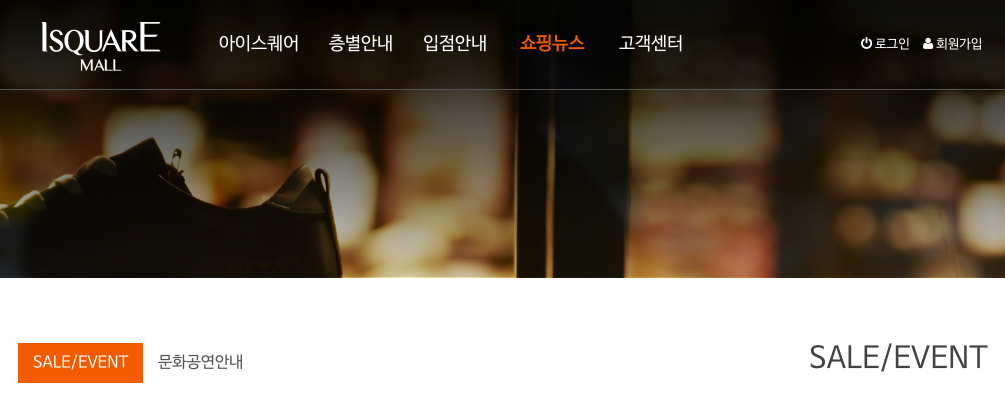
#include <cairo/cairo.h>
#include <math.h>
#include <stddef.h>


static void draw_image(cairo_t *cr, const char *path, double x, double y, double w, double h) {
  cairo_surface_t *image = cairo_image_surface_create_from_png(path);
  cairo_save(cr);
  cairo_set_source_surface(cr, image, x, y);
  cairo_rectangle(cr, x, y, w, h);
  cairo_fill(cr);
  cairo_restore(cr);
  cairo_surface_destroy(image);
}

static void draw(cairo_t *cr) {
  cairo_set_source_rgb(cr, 1, 1, 1);
  cairo_paint(cr);
  draw_image(cr, "images/1.png", 0, 0, 1005, 278);
  cairo_set_source_rgba(cr, 0, 0, 0, 0.3);
  cairo_rectangle(cr, 0, 0, 1005, 89);
  cairo_fill(cr);
  cairo_set_source_rgb(cr, 83 / 255.0, 84 / 255.0, 84 / 255.0);
  cairo_rectangle(cr, 0, 89, 1005, 1);
  cairo_fill(cr);
  draw_image(cr, "images/2.png", 41, 22, 120, 49);
  draw_image(cr, "images/3.png", 861, 36, 12, 13);
  draw_image(cr, "images/4.png", 923, 37, 11, 12);
  cairo_set_source_rgb(cr, 243 / 255.0, 91 / 255.0, 0);
  cairo_rectangle(cr, 18, 343, 125, 40);
  cairo_fill(cr);
  cairo_select_font_face(cr, "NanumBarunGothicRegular", CAIRO_FONT_SLANT_NORMAL, CAIRO_FONT_WEIGHT_NORMAL);
  cairo_set_font_size(cr, 18);
  cairo_set_source_rgb(cr, 1, 1, 1);
  cairo_move_to(cr, 219, 49);
  cairo_show_text(cr, "아이스퀘어");
  cairo_move_to(cr, 329, 49);
  cairo_show_text(cr, "층별안내");
  cairo_move_to(cr, 423, 49);
  cairo_show_text(cr, "입점안내");
  cairo_select_font_face(cr, "NanumBarunGothicRegular", CAIRO_FONT_SLANT_NORMAL, CAIRO_FONT_WEIGHT_BOLD);
  cairo_set_source_rgb(cr, 243 / 255.0, 91 / 255.0, 0);
  cairo_move_to(cr, 520, 49);
  cairo_show_text(cr, "쇼핑뉴스");
  cairo_select_font_face(cr, "NanumBarunGothicRegular", CAIRO_FONT_SLANT_NORMAL, CAIRO_FONT_WEIGHT_NORMAL);
  cairo_set_source_rgb(cr, 1, 1, 1);
  cairo_move_to(cr, 619, 49);
  cairo_show_text(cr, "고객센터");
  cairo_set_font_size(cr, 13);
  cairo_move_to(cr, 875, 48);
  cairo_show_text(cr, "로그인");
  cairo_move_to(cr, 936, 48);
  cairo_show_text(cr, "회원가입");
  cairo_set_font_size(cr, 16);
  cairo_move_to(cr, 33, 367);
  cairo_show_text(cr, "SALE/EVENT");
  cairo_set_source_rgb(cr, 85 / 255.0, 85 / 255.0, 85 / 255.0);
  cairo_move_to(cr, 158, 367);
  cairo_show_text(cr, "문화공연안내");
  cairo_set_font_size(cr, 30);
  cairo_set_source_rgb(cr, 67 / 255.0, 67 / 255.0, 67 / 255.0);
  cairo_move_to(cr, 809, 367);
  cairo_show_text(cr, "SALE/EVENT");
}

int main(void) {
  cairo_surface_t *surface = cairo_image_surface_create(CAIRO_FORMAT_RGB24, 1005, 400);
  cairo_t *cr = cairo_create(surface);
  cairo_font_options_t *options = cairo_font_options_create();
  cairo_font_options_set_hint_metrics(options, CAIRO_HINT_METRICS_OFF);
  cairo_font_options_set_hint_style(options, CAIRO_HINT_STYLE_NONE);
  cairo_set_font_options(cr, options);
  cairo_set_miter_limit(cr, 4);
  draw(cr);
  cairo_surface_write_to_png(surface, "out.png");
  cairo_font_options_destroy(options);
  cairo_destroy(cr);
  cairo_surface_destroy(surface);
  return 0;
}
